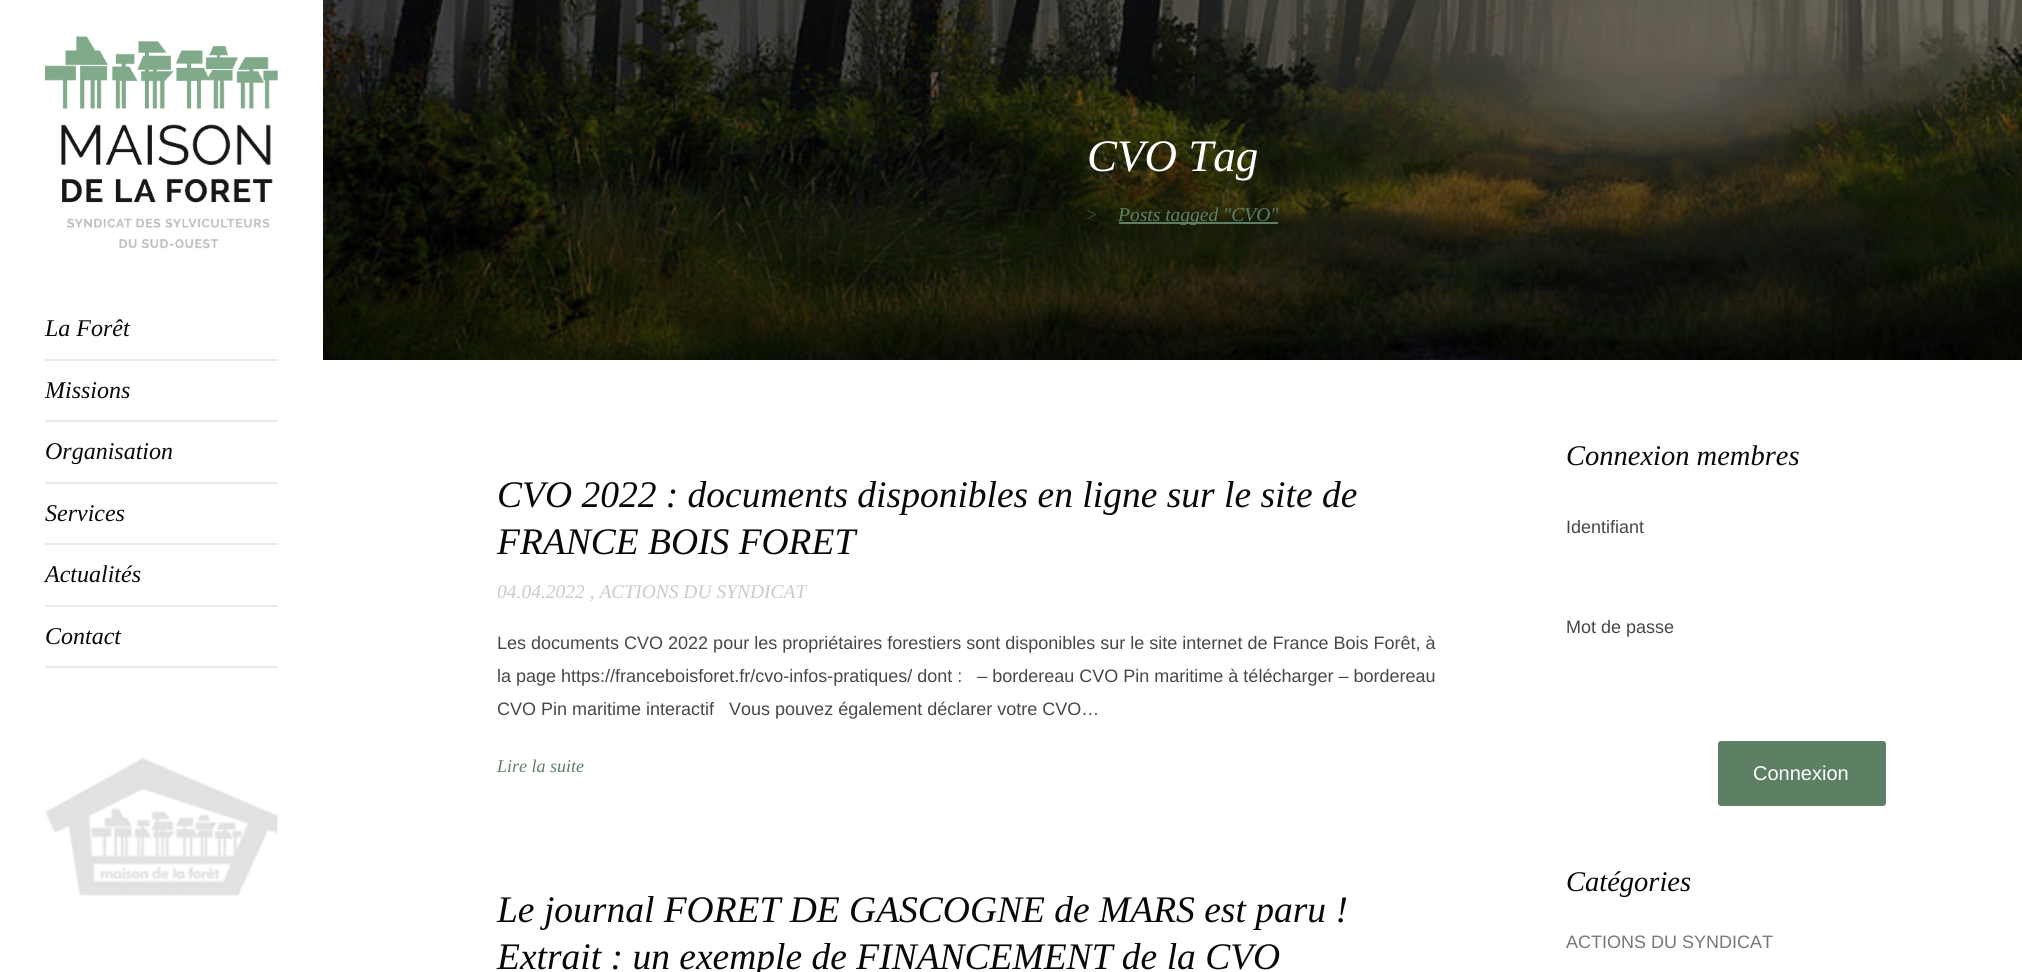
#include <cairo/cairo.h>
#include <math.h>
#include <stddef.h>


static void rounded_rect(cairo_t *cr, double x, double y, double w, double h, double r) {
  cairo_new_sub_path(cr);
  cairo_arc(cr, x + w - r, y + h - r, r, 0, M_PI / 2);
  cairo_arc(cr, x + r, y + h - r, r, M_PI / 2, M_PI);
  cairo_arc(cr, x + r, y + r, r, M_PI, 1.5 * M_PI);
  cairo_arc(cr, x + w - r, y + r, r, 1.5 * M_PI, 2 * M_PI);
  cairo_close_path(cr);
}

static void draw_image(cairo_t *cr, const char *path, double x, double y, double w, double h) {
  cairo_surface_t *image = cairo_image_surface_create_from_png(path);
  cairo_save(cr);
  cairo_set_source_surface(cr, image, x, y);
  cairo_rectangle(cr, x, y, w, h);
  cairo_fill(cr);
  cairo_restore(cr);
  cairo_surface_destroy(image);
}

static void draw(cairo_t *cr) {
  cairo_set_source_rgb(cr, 1, 1, 1);
  cairo_paint(cr);
  draw_image(cr, "images/1.png", 45, 36, 233, 213);
  cairo_set_source_rgb(cr, 233 / 255.0, 233 / 255.0, 233 / 255.0);
  cairo_rectangle(cr, 45, 359, 233, 2);
  cairo_fill(cr);
  cairo_rectangle(cr, 45, 420, 233, 2);
  cairo_fill(cr);
  cairo_rectangle(cr, 45, 482, 233, 2);
  cairo_fill(cr);
  cairo_rectangle(cr, 45, 543, 233, 2);
  cairo_fill(cr);
  cairo_rectangle(cr, 45, 605, 233, 2);
  cairo_fill(cr);
  cairo_rectangle(cr, 45, 666, 233, 2);
  cairo_fill(cr);
  draw_image(cr, "images/2.png", 45, 757, 233, 139);
  draw_image(cr, "images/3.png", 323, 0, 1699, 360);
  cairo_set_source_rgb(cr, 93 / 255.0, 128 / 255.0, 101 / 255.0);
  cairo_rectangle(cr, 1119, 222, 159, 2);
  cairo_fill(cr);
  rounded_rect(cr, 1718, 741, 168, 65, 3);
  cairo_fill(cr);
  cairo_select_font_face(cr, "Liberation Serif", CAIRO_FONT_SLANT_ITALIC, CAIRO_FONT_WEIGHT_NORMAL);
  cairo_set_font_size(cr, 24);
  cairo_set_source_rgb(cr, 8 / 255.0, 8 / 255.0, 8 / 255.0);
  cairo_move_to(cr, 45, 336);
  cairo_show_text(cr, "La Forêt");
  cairo_move_to(cr, 45, 398);
  cairo_show_text(cr, "Missions");
  cairo_move_to(cr, 45, 459);
  cairo_show_text(cr, "Organisation");
  cairo_move_to(cr, 45, 521);
  cairo_show_text(cr, "Services");
  cairo_move_to(cr, 45, 582);
  cairo_show_text(cr, "Actualités");
  cairo_move_to(cr, 45, 644);
  cairo_show_text(cr, "Contact");
  cairo_set_font_size(cr, 45);
  cairo_set_source_rgb(cr, 1, 1, 1);
  cairo_move_to(cr, 1087, 171);
  cairo_show_text(cr, "CVO Tag");
  cairo_set_font_size(cr, 19.5);
  cairo_set_source_rgb(cr, 72 / 255.0, 71 / 255.0, 71 / 255.0);
  cairo_move_to(cr, 1085, 221);
  cairo_show_text(cr, ">");
  cairo_set_source_rgb(cr, 93 / 255.0, 128 / 255.0, 101 / 255.0);
  cairo_move_to(cr, 1118, 221);
  cairo_show_text(cr, "Posts tagged \"CVO\"");
  cairo_set_font_size(cr, 37.5);
  cairo_set_source_rgb(cr, 8 / 255.0, 8 / 255.0, 8 / 255.0);
  cairo_move_to(cr, 497, 507);
  cairo_show_text(cr, "CVO 2022 : documents disponibles en ligne sur le site de");
  cairo_move_to(cr, 497, 554);
  cairo_show_text(cr, "FRANCE BOIS FORET");
  cairo_set_font_size(cr, 19.5);
  cairo_set_source_rgb(cr, 202 / 255.0, 202 / 255.0, 202 / 255.0);
  cairo_move_to(cr, 497, 598);
  cairo_show_text(cr, "04.04.2022 , ACTIONS DU SYNDICAT");
  cairo_select_font_face(cr, "Liberation Sans", CAIRO_FONT_SLANT_NORMAL, CAIRO_FONT_WEIGHT_NORMAL);
  cairo_set_font_size(cr, 18);
  cairo_set_source_rgb(cr, 72 / 255.0, 71 / 255.0, 71 / 255.0);
  cairo_move_to(cr, 497, 649);
  cairo_show_text(cr, "Les documents CVO 2022 pour les propriétaires forestiers sont disponibles sur le site internet de France Bois Forêt, à");
  cairo_move_to(cr, 497, 682);
  cairo_show_text(cr, "la page https://franceboisforet.fr/cvo-infos-pratiques/ dont :   – bordereau CVO Pin maritime à télécharger – bordereau");
  cairo_move_to(cr, 497, 715);
  cairo_show_text(cr, "CVO Pin maritime interactif   Vous pouvez également déclarer votre CVO…");
  cairo_select_font_face(cr, "Liberation Serif", CAIRO_FONT_SLANT_ITALIC, CAIRO_FONT_WEIGHT_NORMAL);
  cairo_set_source_rgb(cr, 93 / 255.0, 128 / 255.0, 101 / 255.0);
  cairo_move_to(cr, 497, 772);
  cairo_show_text(cr, "Lire la suite");
  cairo_set_font_size(cr, 37.5);
  cairo_set_source_rgb(cr, 8 / 255.0, 8 / 255.0, 8 / 255.0);
  cairo_move_to(cr, 497, 922);
  cairo_show_text(cr, "Le journal FORET DE GASCOGNE de MARS est paru !");
  cairo_move_to(cr, 497, 969);
  cairo_show_text(cr, "Extrait : un exemple de FINANCEMENT de la CVO");
  cairo_set_font_size(cr, 28.5);
  cairo_move_to(cr, 1566, 465);
  cairo_show_text(cr, "Connexion membres");
  cairo_select_font_face(cr, "Liberation Sans", CAIRO_FONT_SLANT_NORMAL, CAIRO_FONT_WEIGHT_NORMAL);
  cairo_set_font_size(cr, 18);
  cairo_set_source_rgb(cr, 72 / 255.0, 71 / 255.0, 71 / 255.0);
  cairo_move_to(cr, 1566, 533);
  cairo_show_text(cr, "Identifiant");
  cairo_move_to(cr, 1566, 633);
  cairo_show_text(cr, "Mot de passe");
  cairo_set_font_size(cr, 20);
  cairo_set_source_rgb(cr, 1, 1, 1);
  cairo_move_to(cr, 1753, 780);
  cairo_show_text(cr, "Connexion");
  cairo_select_font_face(cr, "Liberation Serif", CAIRO_FONT_SLANT_ITALIC, CAIRO_FONT_WEIGHT_NORMAL);
  cairo_set_font_size(cr, 28.5);
  cairo_set_source_rgb(cr, 8 / 255.0, 8 / 255.0, 8 / 255.0);
  cairo_move_to(cr, 1566, 891);
  cairo_show_text(cr, "Catégories");
  cairo_select_font_face(cr, "Liberation Sans", CAIRO_FONT_SLANT_NORMAL, CAIRO_FONT_WEIGHT_NORMAL);
  cairo_set_font_size(cr, 18);
  cairo_set_source_rgb(cr, 119 / 255.0, 119 / 255.0, 119 / 255.0);
  cairo_move_to(cr, 1566, 948);
  cairo_show_text(cr, "ACTIONS DU SYNDICAT");
}

int main(void) {
  cairo_surface_t *surface = cairo_image_surface_create(CAIRO_FORMAT_RGB24, 2022, 972);
  cairo_t *cr = cairo_create(surface);
  cairo_font_options_t *options = cairo_font_options_create();
  cairo_font_options_set_hint_metrics(options, CAIRO_HINT_METRICS_OFF);
  cairo_font_options_set_hint_style(options, CAIRO_HINT_STYLE_NONE);
  cairo_set_font_options(cr, options);
  cairo_set_miter_limit(cr, 4);
  draw(cr);
  cairo_surface_write_to_png(surface, "out.png");
  cairo_font_options_destroy(options);
  cairo_destroy(cr);
  cairo_surface_destroy(surface);
  return 0;
}
